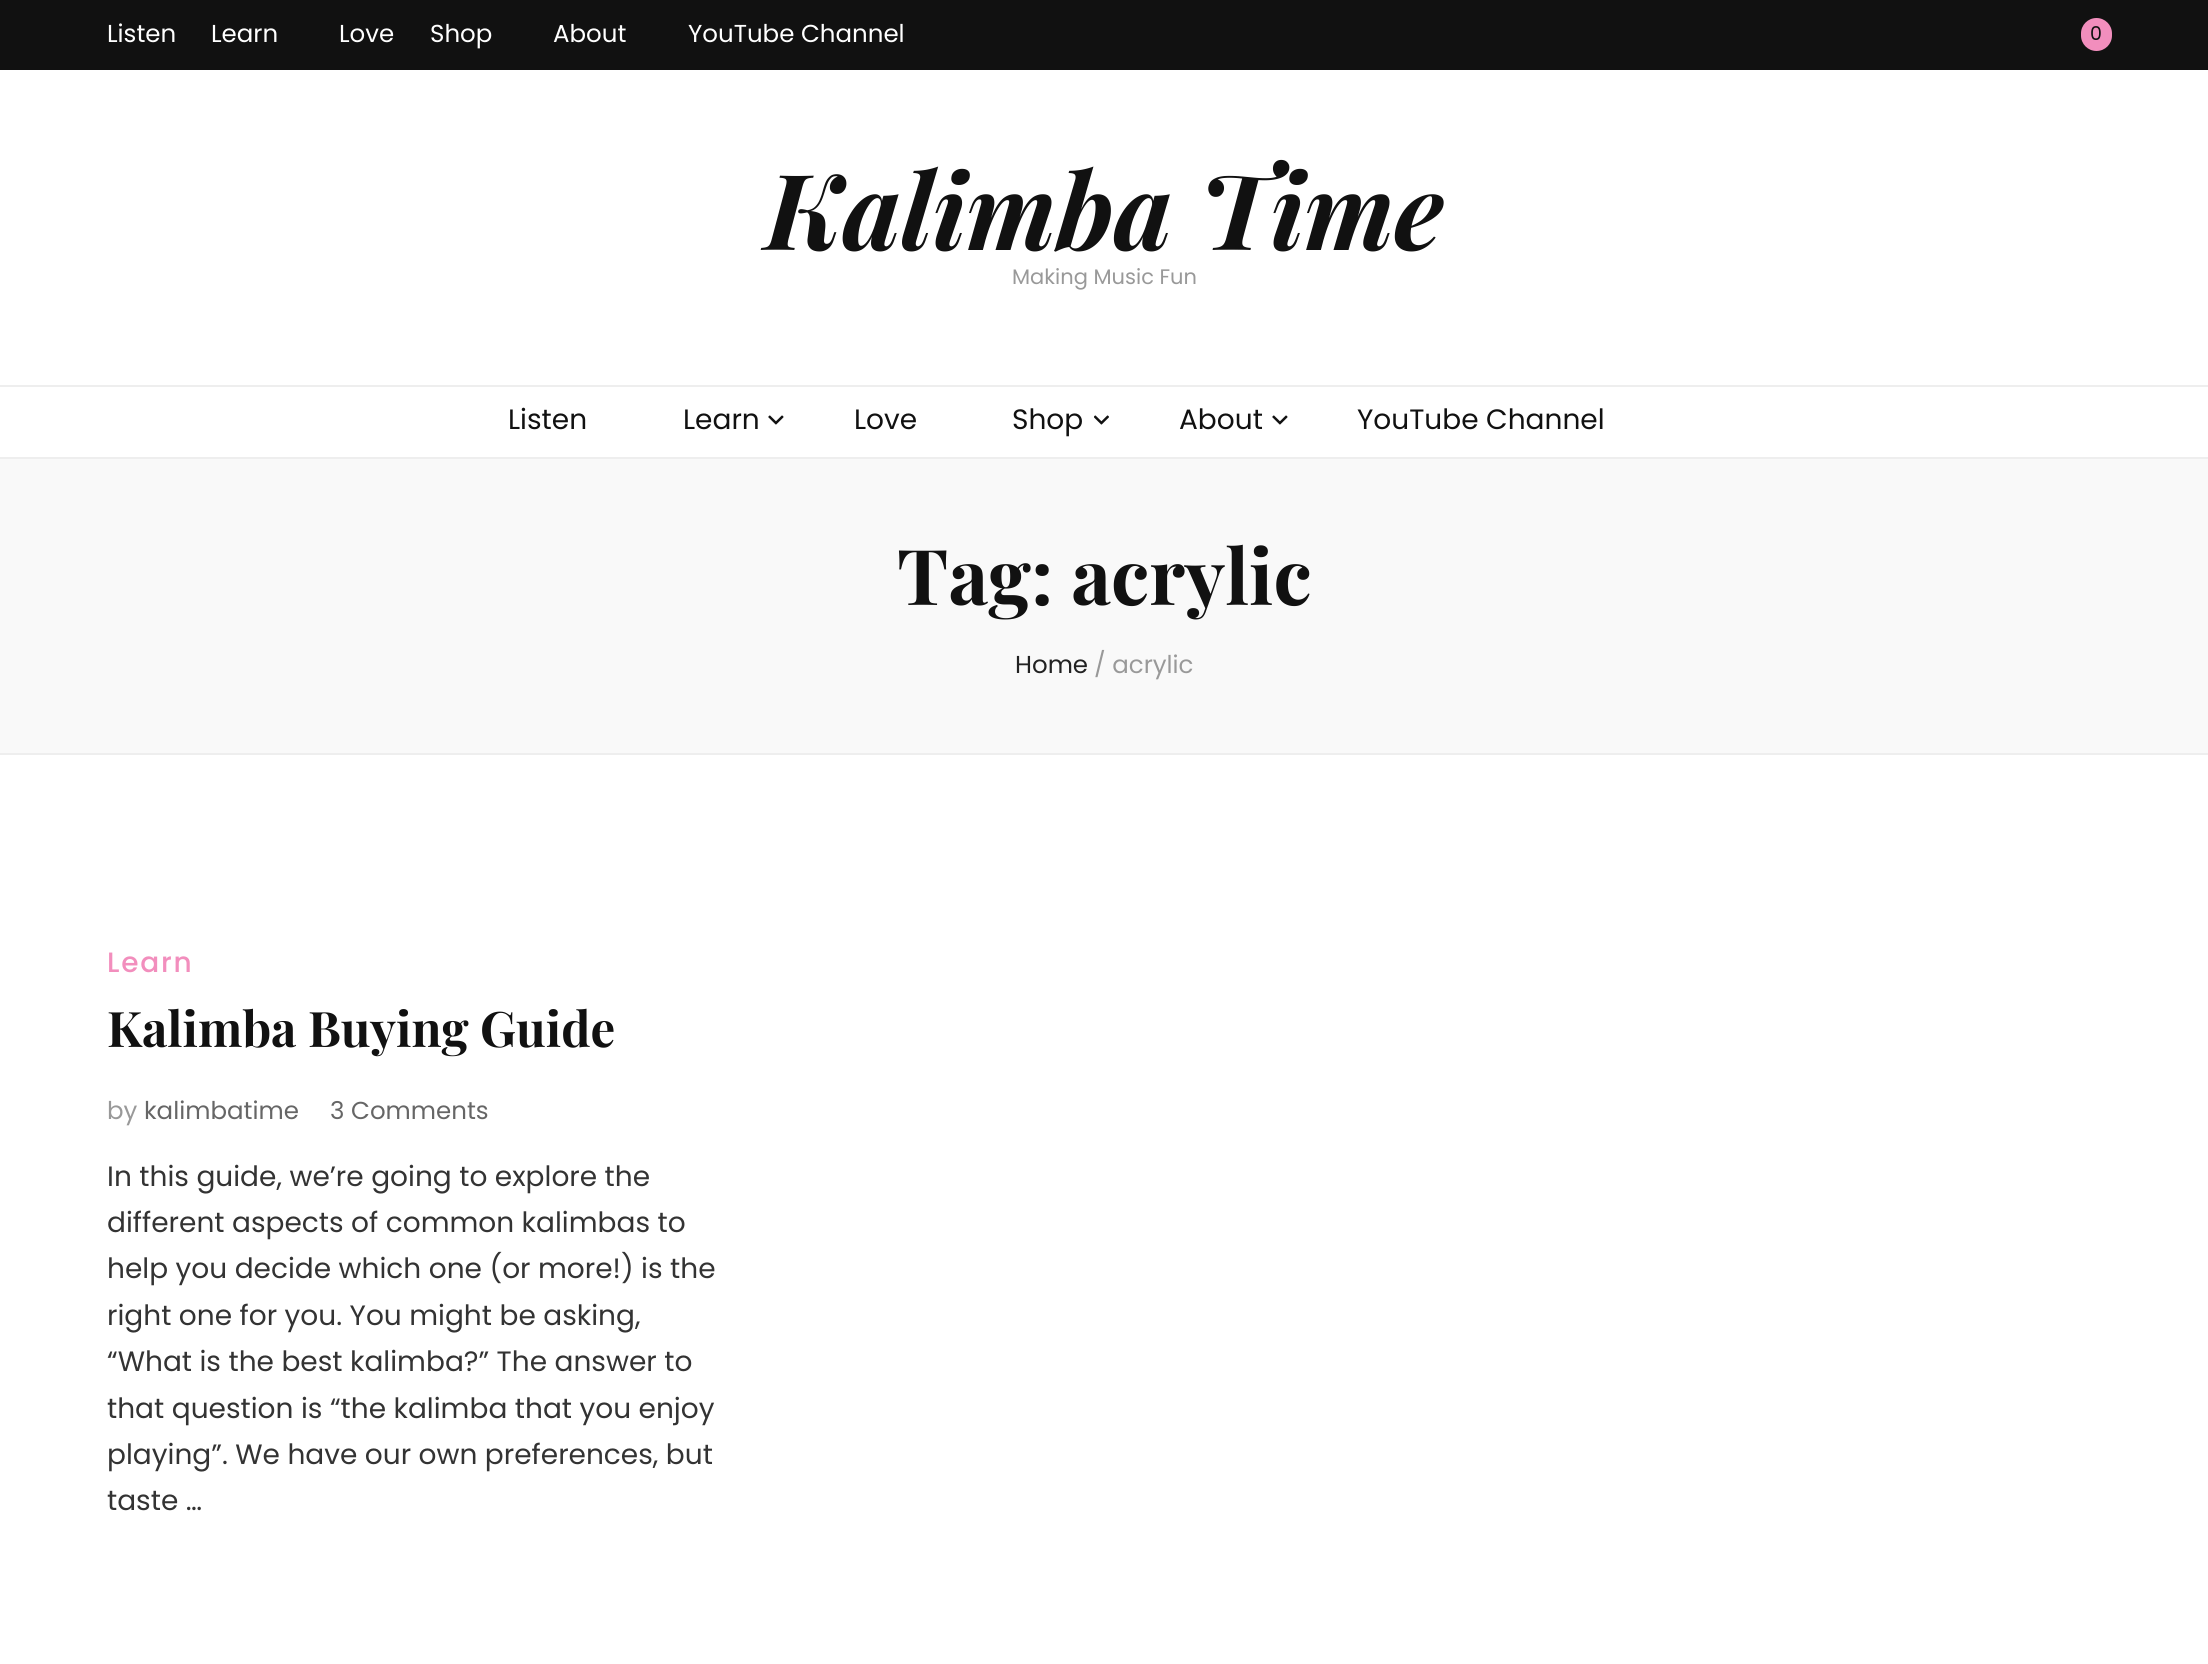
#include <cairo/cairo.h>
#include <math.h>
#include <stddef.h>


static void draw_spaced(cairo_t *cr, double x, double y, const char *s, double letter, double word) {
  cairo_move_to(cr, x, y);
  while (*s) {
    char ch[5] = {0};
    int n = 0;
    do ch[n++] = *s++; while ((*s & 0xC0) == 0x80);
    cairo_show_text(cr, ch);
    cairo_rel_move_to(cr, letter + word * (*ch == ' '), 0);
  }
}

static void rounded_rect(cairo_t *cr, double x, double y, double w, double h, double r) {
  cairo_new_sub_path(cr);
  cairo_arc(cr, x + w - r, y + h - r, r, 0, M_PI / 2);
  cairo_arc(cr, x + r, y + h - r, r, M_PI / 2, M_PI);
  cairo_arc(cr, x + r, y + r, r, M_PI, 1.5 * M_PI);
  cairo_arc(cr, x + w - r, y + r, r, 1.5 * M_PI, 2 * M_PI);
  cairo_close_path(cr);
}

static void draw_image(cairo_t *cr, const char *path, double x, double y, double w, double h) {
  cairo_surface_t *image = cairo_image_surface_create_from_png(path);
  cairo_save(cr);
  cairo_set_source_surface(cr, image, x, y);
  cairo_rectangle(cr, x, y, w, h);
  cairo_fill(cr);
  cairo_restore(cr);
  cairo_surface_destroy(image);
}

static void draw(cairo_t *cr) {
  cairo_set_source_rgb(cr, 1, 1, 1);
  cairo_paint(cr);
  cairo_set_source_rgb(cr, 17 / 255.0, 17 / 255.0, 17 / 255.0);
  cairo_rectangle(cr, 0, 0, 2208, 70);
  cairo_fill(cr);
  cairo_set_source_rgb(cr, 242 / 255.0, 142 / 255.0, 189 / 255.0);
  rounded_rect(cr, 2081, 18, 31, 33, 15.5);
  cairo_fill(cr);
  cairo_set_source_rgb(cr, 238 / 255.0, 238 / 255.0, 238 / 255.0);
  cairo_rectangle(cr, 0, 385, 2208, 2);
  cairo_fill(cr);
  cairo_rectangle(cr, 0, 457, 2208, 2);
  cairo_fill(cr);
  draw_image(cr, "images/1.png", 768, 415, 16, 10);
  draw_image(cr, "images/2.png", 1094, 415, 15, 10);
  draw_image(cr, "images/1.png", 1272, 415, 16, 10);
  cairo_set_source_rgb(cr, 249 / 255.0, 249 / 255.0, 249 / 255.0);
  cairo_rectangle(cr, 0, 459, 2208, 294);
  cairo_fill(cr);
  cairo_set_source_rgb(cr, 238 / 255.0, 238 / 255.0, 238 / 255.0);
  cairo_rectangle(cr, 0, 753, 2208, 2);
  cairo_fill(cr);
  cairo_select_font_face(cr, "Poppins", CAIRO_FONT_SLANT_NORMAL, CAIRO_FONT_WEIGHT_NORMAL);
  cairo_set_font_size(cr, 24.5);
  cairo_set_source_rgb(cr, 1, 1, 1);
  cairo_move_to(cr, 107, 42);
  cairo_show_text(cr, "Listen");
  cairo_move_to(cr, 211, 42);
  cairo_show_text(cr, "Learn");
  cairo_move_to(cr, 339, 42);
  cairo_show_text(cr, "Love");
  cairo_move_to(cr, 430, 42);
  cairo_show_text(cr, "Shop");
  cairo_move_to(cr, 553, 42);
  cairo_show_text(cr, "About");
  cairo_move_to(cr, 688, 42);
  cairo_show_text(cr, "YouTube Channel");
  cairo_set_font_size(cr, 19);
  cairo_set_source_rgb(cr, 17 / 255.0, 17 / 255.0, 17 / 255.0);
  cairo_move_to(cr, 2090, 40);
  cairo_show_text(cr, "0");
  cairo_select_font_face(cr, "Playfair Display", CAIRO_FONT_SLANT_ITALIC, CAIRO_FONT_WEIGHT_BOLD);
  cairo_set_font_size(cr, 105);
  cairo_move_to(cr, 765, 250);
  cairo_show_text(cr, "Kalimba Time");
  cairo_select_font_face(cr, "Poppins", CAIRO_FONT_SLANT_NORMAL, CAIRO_FONT_WEIGHT_NORMAL);
  cairo_set_font_size(cr, 21);
  cairo_set_source_rgb(cr, 153 / 255.0, 153 / 255.0, 153 / 255.0);
  cairo_move_to(cr, 1012, 284);
  cairo_show_text(cr, "Making Music Fun");
  cairo_set_font_size(cr, 28);
  cairo_set_source_rgb(cr, 17 / 255.0, 17 / 255.0, 17 / 255.0);
  cairo_move_to(cr, 508, 429);
  cairo_show_text(cr, "Listen");
  cairo_move_to(cr, 683, 429);
  cairo_show_text(cr, "Learn");
  cairo_move_to(cr, 854, 429);
  cairo_show_text(cr, "Love");
  cairo_move_to(cr, 1012, 429);
  cairo_show_text(cr, "Shop");
  cairo_move_to(cr, 1179, 429);
  cairo_show_text(cr, "About");
  cairo_move_to(cr, 1357, 429);
  cairo_show_text(cr, "YouTube Channel");
  cairo_select_font_face(cr, "Playfair Display", CAIRO_FONT_SLANT_NORMAL, CAIRO_FONT_WEIGHT_BOLD);
  cairo_set_font_size(cr, 77);
  cairo_move_to(cr, 897, 605);
  cairo_show_text(cr, "Tag: acrylic");
  cairo_select_font_face(cr, "Poppins", CAIRO_FONT_SLANT_NORMAL, CAIRO_FONT_WEIGHT_NORMAL);
  cairo_set_font_size(cr, 24.5);
  cairo_set_source_rgb(cr, 34 / 255.0, 34 / 255.0, 34 / 255.0);
  cairo_move_to(cr, 1015, 673);
  cairo_show_text(cr, "Home");
  cairo_set_source_rgb(cr, 153 / 255.0, 153 / 255.0, 153 / 255.0);
  cairo_move_to(cr, 1094, 673);
  cairo_show_text(cr, "/ acrylic");
  cairo_select_font_face(cr, "Poppins Medium", CAIRO_FONT_SLANT_NORMAL, CAIRO_FONT_WEIGHT_NORMAL);
  cairo_set_font_size(cr, 28);
  cairo_set_source_rgb(cr, 242 / 255.0, 142 / 255.0, 189 / 255.0);
  draw_spaced(cr, 107, 972, "Learn", 1.75, 0);
  cairo_select_font_face(cr, "Playfair Display", CAIRO_FONT_SLANT_NORMAL, CAIRO_FONT_WEIGHT_BOLD);
  cairo_set_font_size(cr, 49);
  cairo_set_source_rgb(cr, 17 / 255.0, 17 / 255.0, 17 / 255.0);
  cairo_move_to(cr, 107, 1047);
  cairo_show_text(cr, "Kalimba Buying Guide");
  cairo_select_font_face(cr, "Poppins", CAIRO_FONT_SLANT_NORMAL, CAIRO_FONT_WEIGHT_NORMAL);
  cairo_set_font_size(cr, 24.5);
  cairo_set_source_rgb(cr, 153 / 255.0, 153 / 255.0, 153 / 255.0);
  cairo_move_to(cr, 107, 1119);
  cairo_show_text(cr, "by");
  cairo_set_source_rgb(cr, 102 / 255.0, 102 / 255.0, 102 / 255.0);
  cairo_move_to(cr, 144, 1119);
  cairo_show_text(cr, "kalimbatime");
  cairo_move_to(cr, 330, 1119);
  cairo_show_text(cr, "3 Comments");
  cairo_set_font_size(cr, 28);
  cairo_set_source_rgb(cr, 51 / 255.0, 51 / 255.0, 51 / 255.0);
  cairo_move_to(cr, 107, 1186);
  cairo_show_text(cr, "In this guide, we’re going to explore the");
  cairo_move_to(cr, 107, 1232);
  cairo_show_text(cr, "different aspects of common kalimbas to");
  cairo_move_to(cr, 107, 1278);
  cairo_show_text(cr, "help you decide which one (or more!) is the");
  cairo_move_to(cr, 107, 1325);
  cairo_show_text(cr, "right one for you. You might be asking,");
  cairo_move_to(cr, 107, 1371);
  cairo_show_text(cr, "“What is the best kalimba?” The answer to");
  cairo_move_to(cr, 107, 1418);
  cairo_show_text(cr, "that question is “the kalimba that you enjoy");
  cairo_move_to(cr, 107, 1464);
  cairo_show_text(cr, "playing”. We have our own preferences, but");
  cairo_move_to(cr, 107, 1510);
  cairo_show_text(cr, "taste …");
}

int main(void) {
  cairo_surface_t *surface = cairo_image_surface_create(CAIRO_FORMAT_RGB24, 2208, 1664);
  cairo_t *cr = cairo_create(surface);
  cairo_font_options_t *options = cairo_font_options_create();
  cairo_font_options_set_hint_metrics(options, CAIRO_HINT_METRICS_OFF);
  cairo_font_options_set_hint_style(options, CAIRO_HINT_STYLE_NONE);
  cairo_set_font_options(cr, options);
  cairo_set_miter_limit(cr, 4);
  draw(cr);
  cairo_surface_write_to_png(surface, "out.png");
  cairo_font_options_destroy(options);
  cairo_destroy(cr);
  cairo_surface_destroy(surface);
  return 0;
}
